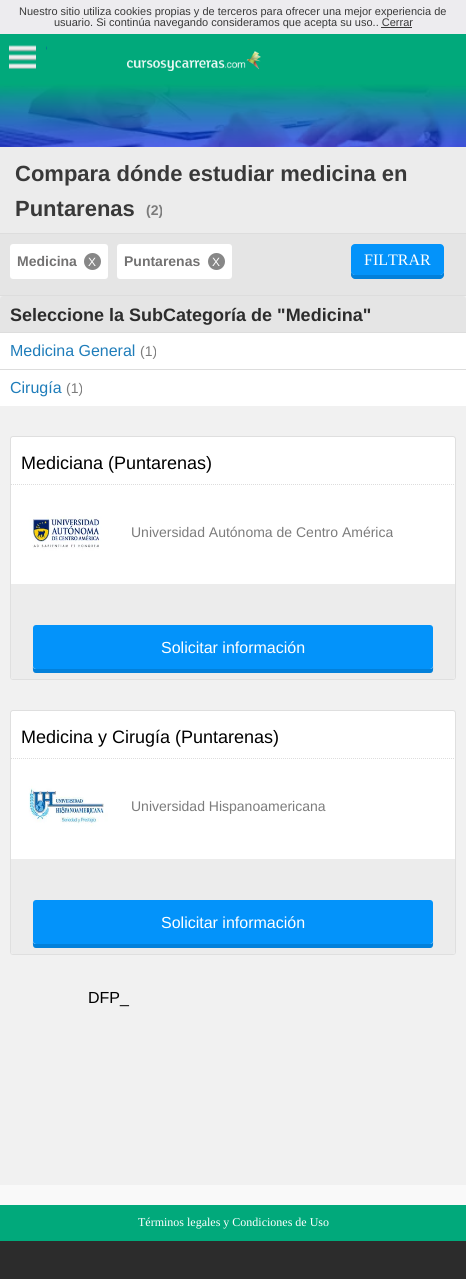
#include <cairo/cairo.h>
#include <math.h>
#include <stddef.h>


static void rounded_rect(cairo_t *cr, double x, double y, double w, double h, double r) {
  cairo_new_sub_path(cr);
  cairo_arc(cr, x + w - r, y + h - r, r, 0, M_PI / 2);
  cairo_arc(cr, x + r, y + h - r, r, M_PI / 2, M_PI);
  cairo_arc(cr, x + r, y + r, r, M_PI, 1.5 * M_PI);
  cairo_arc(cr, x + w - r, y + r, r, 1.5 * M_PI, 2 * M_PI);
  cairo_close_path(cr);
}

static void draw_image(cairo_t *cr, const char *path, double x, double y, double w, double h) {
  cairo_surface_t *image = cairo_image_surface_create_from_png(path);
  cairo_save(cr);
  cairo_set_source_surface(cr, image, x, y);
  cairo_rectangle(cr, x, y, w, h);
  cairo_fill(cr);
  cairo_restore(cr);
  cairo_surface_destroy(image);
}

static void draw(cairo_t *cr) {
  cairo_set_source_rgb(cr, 44 / 255.0, 44 / 255.0, 44 / 255.0);
  cairo_paint(cr);
  cairo_set_source_rgb(cr, 237 / 255.0, 236 / 255.0, 239 / 255.0);
  cairo_rectangle(cr, 0, 0, 466, 34);
  cairo_fill(cr);
  cairo_set_source_rgb(cr, 57 / 255.0, 57 / 255.0, 57 / 255.0);
  cairo_rectangle(cr, 381, 27, 31, 1);
  cairo_fill(cr);
  cairo_set_source_rgb(cr, 1 / 255.0, 169 / 255.0, 123 / 255.0);
  cairo_rectangle(cr, 0, 34, 466, 50);
  cairo_fill(cr);
  draw_image(cr, "images/1.png", 9, 45, 38, 24);
  draw_image(cr, "images/2.png", 127, 51, 134, 20);
  draw_image(cr, "images/3.png", 0, 84, 466, 63);
  cairo_set_source_rgb(cr, 249 / 255.0, 249 / 255.0, 249 / 255.0);
  cairo_rectangle(cr, 0, 1185, 466, 20);
  cairo_fill(cr);
  cairo_set_source_rgb(cr, 236 / 255.0, 236 / 255.0, 236 / 255.0);
  cairo_rectangle(cr, 0, 147, 466, 86);
  cairo_fill(cr);
  cairo_set_source_rgb(cr, 221 / 255.0, 221 / 255.0, 221 / 255.0);
  cairo_rectangle(cr, 0, 233, 466, 1);
  cairo_fill(cr);
  cairo_set_source_rgb(cr, 229 / 255.0, 229 / 255.0, 229 / 255.0);
  cairo_rectangle(cr, 0, 234, 466, 61);
  cairo_fill(cr);
  cairo_set_source_rgb(cr, 221 / 255.0, 221 / 255.0, 221 / 255.0);
  cairo_rectangle(cr, 0, 295, 466, 1);
  cairo_fill(cr);
  cairo_set_source_rgb(cr, 1, 1, 1);
  rounded_rect(cr, 10, 244, 98, 35, 3);
  cairo_fill(cr);
  cairo_set_source_rgb(cr, 135 / 255.0, 135 / 255.0, 135 / 255.0);
  cairo_arc(cr, 92.5, 261.5, 8.5, 0, 2 * M_PI);
  cairo_fill(cr);
  cairo_set_source_rgb(cr, 1, 1, 1);
  rounded_rect(cr, 117, 244, 115, 35, 3);
  cairo_fill(cr);
  cairo_set_source_rgb(cr, 135 / 255.0, 135 / 255.0, 135 / 255.0);
  cairo_arc(cr, 216.5, 261.5, 8.5, 0, 2 * M_PI);
  cairo_fill(cr);
  cairo_set_source_rgb(cr, 2 / 255.0, 128 / 255.0, 218 / 255.0);
  cairo_new_path(cr);
  cairo_move_to(cr, 351, 271);
  cairo_line_to(cr, 351, 275);
  cairo_curve_to(cr, 351, 277, 353, 279, 355, 279);
  cairo_line_to(cr, 440, 279);
  cairo_curve_to(cr, 442, 279, 444, 277, 444, 275);
  cairo_line_to(cr, 444, 271);
  cairo_curve_to(cr, 444, 273, 442, 275, 440, 275);
  cairo_line_to(cr, 355, 275);
  cairo_curve_to(cr, 353, 275, 351, 273, 351, 271);
  cairo_close_path(cr);
  cairo_fill(cr);
  cairo_set_source_rgb(cr, 3 / 255.0, 147 / 255.0, 250 / 255.0);
  rounded_rect(cr, 351, 244, 93, 31, 4);
  cairo_fill(cr);
  cairo_set_source_rgb(cr, 241 / 255.0, 241 / 255.0, 241 / 255.0);
  cairo_rectangle(cr, 0, 296, 466, 889);
  cairo_fill(cr);
  cairo_set_source_rgb(cr, 229 / 255.0, 229 / 255.0, 229 / 255.0);
  rounded_rect(cr, 0, 296, 466, 110, 3);
  cairo_fill(cr);
  cairo_set_source_rgb(cr, 1, 1, 1);
  cairo_rectangle(cr, 0, 333, 466, 36);
  cairo_fill(cr);
  cairo_set_source_rgb(cr, 221 / 255.0, 221 / 255.0, 221 / 255.0);
  cairo_rectangle(cr, 0, 332, 466, 1);
  cairo_fill(cr);
  cairo_set_source_rgb(cr, 1, 1, 1);
  cairo_rectangle(cr, 0, 370, 466, 36);
  cairo_fill(cr);
  cairo_set_source_rgb(cr, 221 / 255.0, 221 / 255.0, 221 / 255.0);
  cairo_rectangle(cr, 0, 369, 466, 1);
  cairo_fill(cr);
  cairo_set_source_rgb(cr, 1, 1, 1);
  rounded_rect(cr, 10.5, 436.5, 445, 243, 2.5);
  cairo_fill_preserve(cr);
  cairo_set_source_rgb(cr, 223 / 255.0, 223 / 255.0, 223 / 255.0);
  cairo_set_line_width(cr, 1);
  cairo_stroke(cr);
  cairo_new_path(cr);
  cairo_move_to(cr, 11, 484.5);
  cairo_line_to(cr, 455, 484.5);
  cairo_set_source_rgb(cr, 221 / 255.0, 221 / 255.0, 221 / 255.0);
  cairo_set_dash(cr, (double[]){1, 1}, 2, 0);
  cairo_stroke(cr);
  draw_image(cr, "images/4.png", 21, 495, 90, 76);
  cairo_set_source_rgb(cr, 236 / 255.0, 236 / 255.0, 236 / 255.0);
  cairo_new_path(cr);
  cairo_move_to(cr, 11, 584);
  cairo_line_to(cr, 455, 584);
  cairo_line_to(cr, 455, 677);
  cairo_curve_to(cr, 455, 678, 454, 679, 453, 679);
  cairo_line_to(cr, 13, 679);
  cairo_curve_to(cr, 12, 679, 11, 678, 11, 677);
  cairo_close_path(cr);
  cairo_fill(cr);
  cairo_set_source_rgb(cr, 2 / 255.0, 128 / 255.0, 218 / 255.0);
  cairo_new_path(cr);
  cairo_move_to(cr, 33, 666);
  cairo_curve_to(cr, 33, 668, 32, 673, 36, 673);
  cairo_line_to(cr, 430, 673);
  cairo_curve_to(cr, 434, 673, 433, 668, 433, 666);
  cairo_curve_to(cr, 433, 668, 432, 669, 430, 669);
  cairo_line_to(cr, 36, 669);
  cairo_curve_to(cr, 34, 669, 33, 668, 33, 666);
  cairo_close_path(cr);
  cairo_fill(cr);
  cairo_set_source_rgb(cr, 3 / 255.0, 147 / 255.0, 250 / 255.0);
  rounded_rect(cr, 33, 625, 400, 44, 3);
  cairo_fill(cr);
  cairo_set_source_rgb(cr, 1, 1, 1);
  rounded_rect(cr, 10.5, 710.5, 445, 244, 2.5);
  cairo_fill_preserve(cr);
  cairo_set_source_rgb(cr, 223 / 255.0, 223 / 255.0, 223 / 255.0);
  cairo_set_dash(cr, NULL, 0, 0);
  cairo_stroke(cr);
  cairo_new_path(cr);
  cairo_move_to(cr, 11, 758.5);
  cairo_line_to(cr, 455, 758.5);
  cairo_set_source_rgb(cr, 221 / 255.0, 221 / 255.0, 221 / 255.0);
  cairo_set_dash(cr, (double[]){1, 1}, 2, 0);
  cairo_stroke(cr);
  draw_image(cr, "images/5.png", 21, 769, 90, 77);
  cairo_set_source_rgb(cr, 236 / 255.0, 236 / 255.0, 236 / 255.0);
  cairo_new_path(cr);
  cairo_move_to(cr, 11, 859);
  cairo_line_to(cr, 455, 859);
  cairo_line_to(cr, 455, 952);
  cairo_curve_to(cr, 455, 953, 454, 954, 453, 954);
  cairo_line_to(cr, 13, 954);
  cairo_curve_to(cr, 12, 954, 11, 953, 11, 952);
  cairo_close_path(cr);
  cairo_fill(cr);
  cairo_set_source_rgb(cr, 2 / 255.0, 128 / 255.0, 218 / 255.0);
  cairo_new_path(cr);
  cairo_move_to(cr, 33, 941);
  cairo_curve_to(cr, 33, 943, 32, 948, 36, 948);
  cairo_line_to(cr, 430, 948);
  cairo_curve_to(cr, 434, 948, 433, 943, 433, 941);
  cairo_curve_to(cr, 433, 943, 432, 944, 430, 944);
  cairo_line_to(cr, 36, 944);
  cairo_curve_to(cr, 34, 944, 33, 943, 33, 941);
  cairo_close_path(cr);
  cairo_fill(cr);
  cairo_set_source_rgb(cr, 3 / 255.0, 147 / 255.0, 250 / 255.0);
  rounded_rect(cr, 33, 900, 400, 44, 3);
  cairo_fill(cr);
  cairo_set_source_rgb(cr, 1 / 255.0, 169 / 255.0, 123 / 255.0);
  cairo_rectangle(cr, 0, 1205, 466, 36);
  cairo_fill(cr);
  cairo_select_font_face(cr, "Liberation Sans", CAIRO_FONT_SLANT_NORMAL, CAIRO_FONT_WEIGHT_NORMAL);
  cairo_set_font_size(cr, 11);
  cairo_set_source_rgb(cr, 57 / 255.0, 57 / 255.0, 57 / 255.0);
  cairo_move_to(cr, 19, 15);
  cairo_show_text(cr, "Nuestro sitio utiliza cookies propias y de terceros para ofrecer una mejor experiencia de");
  cairo_move_to(cr, 54, 26);
  cairo_show_text(cr, "usuario. Si continúa navegando consideramos que acepta su uso.. Cerrar");
  cairo_select_font_face(cr, "Liberation Sans", CAIRO_FONT_SLANT_NORMAL, CAIRO_FONT_WEIGHT_BOLD);
  cairo_set_font_size(cr, 22);
  cairo_move_to(cr, 15, 181);
  cairo_show_text(cr, "Compara dónde estudiar medicina en");
  cairo_move_to(cr, 15, 216);
  cairo_show_text(cr, "Puntarenas");
  cairo_set_font_size(cr, 14);
  cairo_set_source_rgb(cr, 124 / 255.0, 124 / 255.0, 124 / 255.0);
  cairo_move_to(cr, 146, 215);
  cairo_show_text(cr, "(2)");
  cairo_set_source_rgb(cr, 115 / 255.0, 114 / 255.0, 114 / 255.0);
  cairo_move_to(cr, 17, 266);
  cairo_show_text(cr, "Medicina");
  cairo_select_font_face(cr, "Liberation Sans", CAIRO_FONT_SLANT_NORMAL, CAIRO_FONT_WEIGHT_NORMAL);
  cairo_set_font_size(cr, 12);
  cairo_set_source_rgb(cr, 1, 1, 1);
  cairo_move_to(cr, 88, 266);
  cairo_show_text(cr, "X");
  cairo_select_font_face(cr, "Liberation Sans", CAIRO_FONT_SLANT_NORMAL, CAIRO_FONT_WEIGHT_BOLD);
  cairo_set_font_size(cr, 14);
  cairo_set_source_rgb(cr, 115 / 255.0, 114 / 255.0, 114 / 255.0);
  cairo_move_to(cr, 124, 266);
  cairo_show_text(cr, "Puntarenas");
  cairo_select_font_face(cr, "Liberation Sans", CAIRO_FONT_SLANT_NORMAL, CAIRO_FONT_WEIGHT_NORMAL);
  cairo_set_font_size(cr, 12);
  cairo_set_source_rgb(cr, 1, 1, 1);
  cairo_move_to(cr, 212, 266);
  cairo_show_text(cr, "X");
  cairo_select_font_face(cr, "Liberation Serif", CAIRO_FONT_SLANT_NORMAL, CAIRO_FONT_WEIGHT_NORMAL);
  cairo_set_font_size(cr, 16);
  cairo_move_to(cr, 364, 265);
  cairo_show_text(cr, "FILTRAR");
  cairo_select_font_face(cr, "Liberation Sans", CAIRO_FONT_SLANT_NORMAL, CAIRO_FONT_WEIGHT_BOLD);
  cairo_set_font_size(cr, 18);
  cairo_set_source_rgb(cr, 44 / 255.0, 44 / 255.0, 44 / 255.0);
  cairo_move_to(cr, 10, 321);
  cairo_show_text(cr, "Seleccione la SubCategoría de \"Medicina\"");
  cairo_select_font_face(cr, "Liberation Sans", CAIRO_FONT_SLANT_NORMAL, CAIRO_FONT_WEIGHT_NORMAL);
  cairo_set_font_size(cr, 16);
  cairo_set_source_rgb(cr, 31 / 255.0, 125 / 255.0, 186 / 255.0);
  cairo_move_to(cr, 10, 356);
  cairo_show_text(cr, "Medicina General");
  cairo_set_font_size(cr, 14);
  cairo_set_source_rgb(cr, 124 / 255.0, 124 / 255.0, 124 / 255.0);
  cairo_move_to(cr, 140, 356);
  cairo_show_text(cr, "(1)");
  cairo_set_font_size(cr, 16);
  cairo_set_source_rgb(cr, 31 / 255.0, 125 / 255.0, 186 / 255.0);
  cairo_move_to(cr, 10, 393);
  cairo_show_text(cr, "Cirugía");
  cairo_set_font_size(cr, 14);
  cairo_set_source_rgb(cr, 124 / 255.0, 124 / 255.0, 124 / 255.0);
  cairo_move_to(cr, 66, 393);
  cairo_show_text(cr, "(1)");
  cairo_set_font_size(cr, 18);
  cairo_set_source_rgb(cr, 0, 0, 0);
  cairo_move_to(cr, 21, 469);
  cairo_show_text(cr, "Mediciana (Puntarenas)");
  cairo_set_font_size(cr, 14);
  cairo_set_source_rgb(cr, 124 / 255.0, 124 / 255.0, 124 / 255.0);
  cairo_move_to(cr, 131, 537);
  cairo_show_text(cr, "Universidad Autónoma de Centro América");
  cairo_set_font_size(cr, 16);
  cairo_set_source_rgb(cr, 1, 1, 1);
  cairo_move_to(cr, 161, 653);
  cairo_show_text(cr, "Solicitar información");
  cairo_set_font_size(cr, 18);
  cairo_set_source_rgb(cr, 0, 0, 0);
  cairo_move_to(cr, 21, 743);
  cairo_show_text(cr, "Medicina y Cirugía (Puntarenas)");
  cairo_set_font_size(cr, 14);
  cairo_set_source_rgb(cr, 124 / 255.0, 124 / 255.0, 124 / 255.0);
  cairo_move_to(cr, 131, 811);
  cairo_show_text(cr, "Universidad Hispanoamericana");
  cairo_set_font_size(cr, 16);
  cairo_set_source_rgb(cr, 1, 1, 1);
  cairo_move_to(cr, 161, 928);
  cairo_show_text(cr, "Solicitar información");
  cairo_set_source_rgb(cr, 0, 0, 0);
  cairo_move_to(cr, 88, 1003);
  cairo_show_text(cr, "DFP_");
  cairo_select_font_face(cr, "Liberation Serif", CAIRO_FONT_SLANT_NORMAL, CAIRO_FONT_WEIGHT_NORMAL);
  cairo_set_font_size(cr, 12);
  cairo_set_source_rgb(cr, 1, 1, 1);
  cairo_move_to(cr, 138, 1226);
  cairo_show_text(cr, "Términos legales y Condiciones de Uso");
}

int main(void) {
  cairo_surface_t *surface = cairo_image_surface_create(CAIRO_FORMAT_RGB24, 466, 1279);
  cairo_t *cr = cairo_create(surface);
  cairo_font_options_t *options = cairo_font_options_create();
  cairo_font_options_set_hint_metrics(options, CAIRO_HINT_METRICS_OFF);
  cairo_font_options_set_hint_style(options, CAIRO_HINT_STYLE_NONE);
  cairo_set_font_options(cr, options);
  cairo_set_miter_limit(cr, 4);
  draw(cr);
  cairo_surface_write_to_png(surface, "out.png");
  cairo_font_options_destroy(options);
  cairo_destroy(cr);
  cairo_surface_destroy(surface);
  return 0;
}
